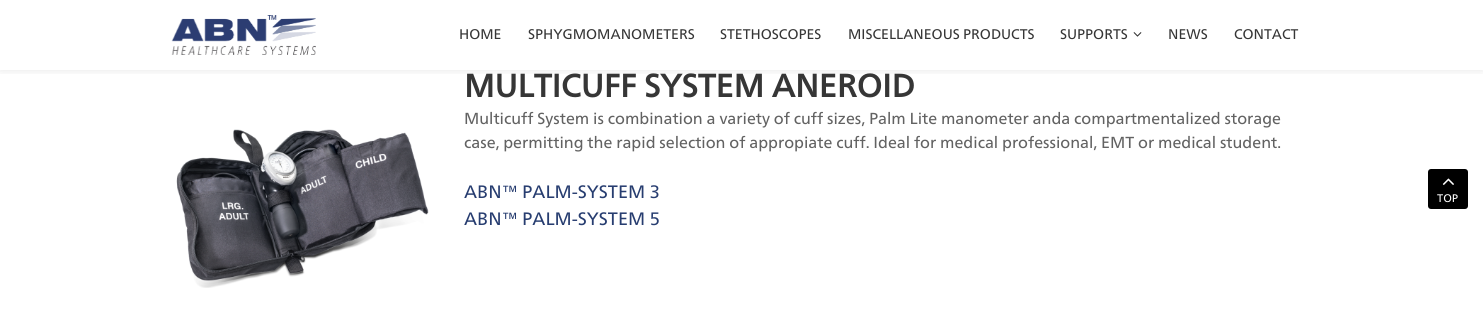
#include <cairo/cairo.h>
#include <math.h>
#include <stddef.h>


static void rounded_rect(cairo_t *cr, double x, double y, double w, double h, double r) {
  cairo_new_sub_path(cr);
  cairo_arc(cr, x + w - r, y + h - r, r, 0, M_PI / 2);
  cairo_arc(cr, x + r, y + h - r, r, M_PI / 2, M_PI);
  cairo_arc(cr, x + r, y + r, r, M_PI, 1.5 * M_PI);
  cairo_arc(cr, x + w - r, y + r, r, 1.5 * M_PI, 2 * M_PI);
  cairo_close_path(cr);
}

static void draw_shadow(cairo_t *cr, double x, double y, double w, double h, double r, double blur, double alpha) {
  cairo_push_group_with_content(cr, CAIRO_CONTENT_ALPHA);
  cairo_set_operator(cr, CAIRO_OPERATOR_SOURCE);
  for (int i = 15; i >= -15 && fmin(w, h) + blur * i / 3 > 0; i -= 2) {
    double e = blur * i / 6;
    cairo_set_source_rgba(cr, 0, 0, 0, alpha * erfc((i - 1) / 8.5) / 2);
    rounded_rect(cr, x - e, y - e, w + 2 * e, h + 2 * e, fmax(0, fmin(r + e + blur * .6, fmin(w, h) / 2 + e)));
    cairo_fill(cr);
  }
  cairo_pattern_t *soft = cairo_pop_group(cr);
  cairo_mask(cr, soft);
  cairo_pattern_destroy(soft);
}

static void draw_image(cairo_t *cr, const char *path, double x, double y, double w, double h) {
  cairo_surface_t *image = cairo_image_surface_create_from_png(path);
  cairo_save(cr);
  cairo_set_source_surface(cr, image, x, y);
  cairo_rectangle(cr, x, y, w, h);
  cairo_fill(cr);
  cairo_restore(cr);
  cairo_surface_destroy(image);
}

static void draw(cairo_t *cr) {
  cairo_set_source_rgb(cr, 1, 1, 1);
  cairo_paint(cr);
  cairo_save(cr);
  cairo_rectangle(cr, 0, 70, 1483, 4);
  cairo_clip(cr);
  cairo_set_source_rgb(cr, 0, 0, 0);
  draw_shadow(cr, 0, 0, 1483, 70, 0, 5, 0.1);
  cairo_restore(cr);
  draw_image(cr, "images/1.png", 171, 15, 145, 40);
  draw_image(cr, "images/2.png", 1133, 32, 9, 5);
  draw_image(cr, "images/3.png", 176, 129, 253, 159);
  cairo_set_source_rgb(cr, 0, 0, 0);
  rounded_rect(cr, 1428, 169, 40, 40, 3);
  cairo_fill(cr);
  draw_image(cr, "images/4.png", 1442, 178, 12, 7);
  cairo_select_font_face(cr, "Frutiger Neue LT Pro", CAIRO_FONT_SLANT_NORMAL, CAIRO_FONT_WEIGHT_NORMAL);
  cairo_set_font_size(cr, 14);
  cairo_set_source_rgb(cr, 54 / 255.0, 54 / 255.0, 54 / 255.0);
  cairo_move_to(cr, 459, 39);
  cairo_show_text(cr, "HOME");
  cairo_move_to(cr, 528, 39);
  cairo_show_text(cr, "SPHYGMOMANOMETERS");
  cairo_move_to(cr, 720, 39);
  cairo_show_text(cr, "STETHOSCOPES");
  cairo_move_to(cr, 848, 39);
  cairo_show_text(cr, "MISCELLANEOUS PRODUCTS");
  cairo_move_to(cr, 1060, 39);
  cairo_show_text(cr, "SUPPORTS");
  cairo_move_to(cr, 1168, 39);
  cairo_show_text(cr, "NEWS");
  cairo_move_to(cr, 1234, 39);
  cairo_show_text(cr, "CONTACT");
  cairo_select_font_face(cr, "Frutiger Neue LT Pro", CAIRO_FONT_SLANT_NORMAL, CAIRO_FONT_WEIGHT_BOLD);
  cairo_set_font_size(cr, 32);
  cairo_move_to(cr, 464, 97);
  cairo_show_text(cr, "MULTICUFF SYSTEM ANEROID");
  cairo_select_font_face(cr, "Frutiger Neue LT Pro", CAIRO_FONT_SLANT_NORMAL, CAIRO_FONT_WEIGHT_NORMAL);
  cairo_set_font_size(cr, 16);
  cairo_set_source_rgb(cr, 98 / 255.0, 98 / 255.0, 98 / 255.0);
  cairo_move_to(cr, 464, 124);
  cairo_show_text(cr, "Multicuff System is combination a variety of cuff sizes, Palm Lite manometer anda compartmentalized storage");
  cairo_move_to(cr, 464, 148);
  cairo_show_text(cr, "case, permitting the rapid selection of appropiate cuff. Ideal for medical professional, EMT or medical student.");
  cairo_set_font_size(cr, 18);
  cairo_set_source_rgb(cr, 39 / 255.0, 61 / 255.0, 112 / 255.0);
  cairo_move_to(cr, 464, 198);
  cairo_show_text(cr, "ABN™ PALM-SYSTEM 3");
  cairo_move_to(cr, 464, 225);
  cairo_show_text(cr, "ABN™ PALM-SYSTEM 5");
  cairo_set_font_size(cr, 11);
  cairo_set_source_rgb(cr, 1, 1, 1);
  cairo_move_to(cr, 1437, 202);
  cairo_show_text(cr, "TOP");
}

int main(void) {
  cairo_surface_t *surface = cairo_image_surface_create(CAIRO_FORMAT_RGB24, 1483, 314);
  cairo_t *cr = cairo_create(surface);
  cairo_font_options_t *options = cairo_font_options_create();
  cairo_font_options_set_hint_metrics(options, CAIRO_HINT_METRICS_OFF);
  cairo_font_options_set_hint_style(options, CAIRO_HINT_STYLE_NONE);
  cairo_set_font_options(cr, options);
  cairo_set_miter_limit(cr, 4);
  draw(cr);
  cairo_surface_write_to_png(surface, "out.png");
  cairo_font_options_destroy(options);
  cairo_destroy(cr);
  cairo_surface_destroy(surface);
  return 0;
}
